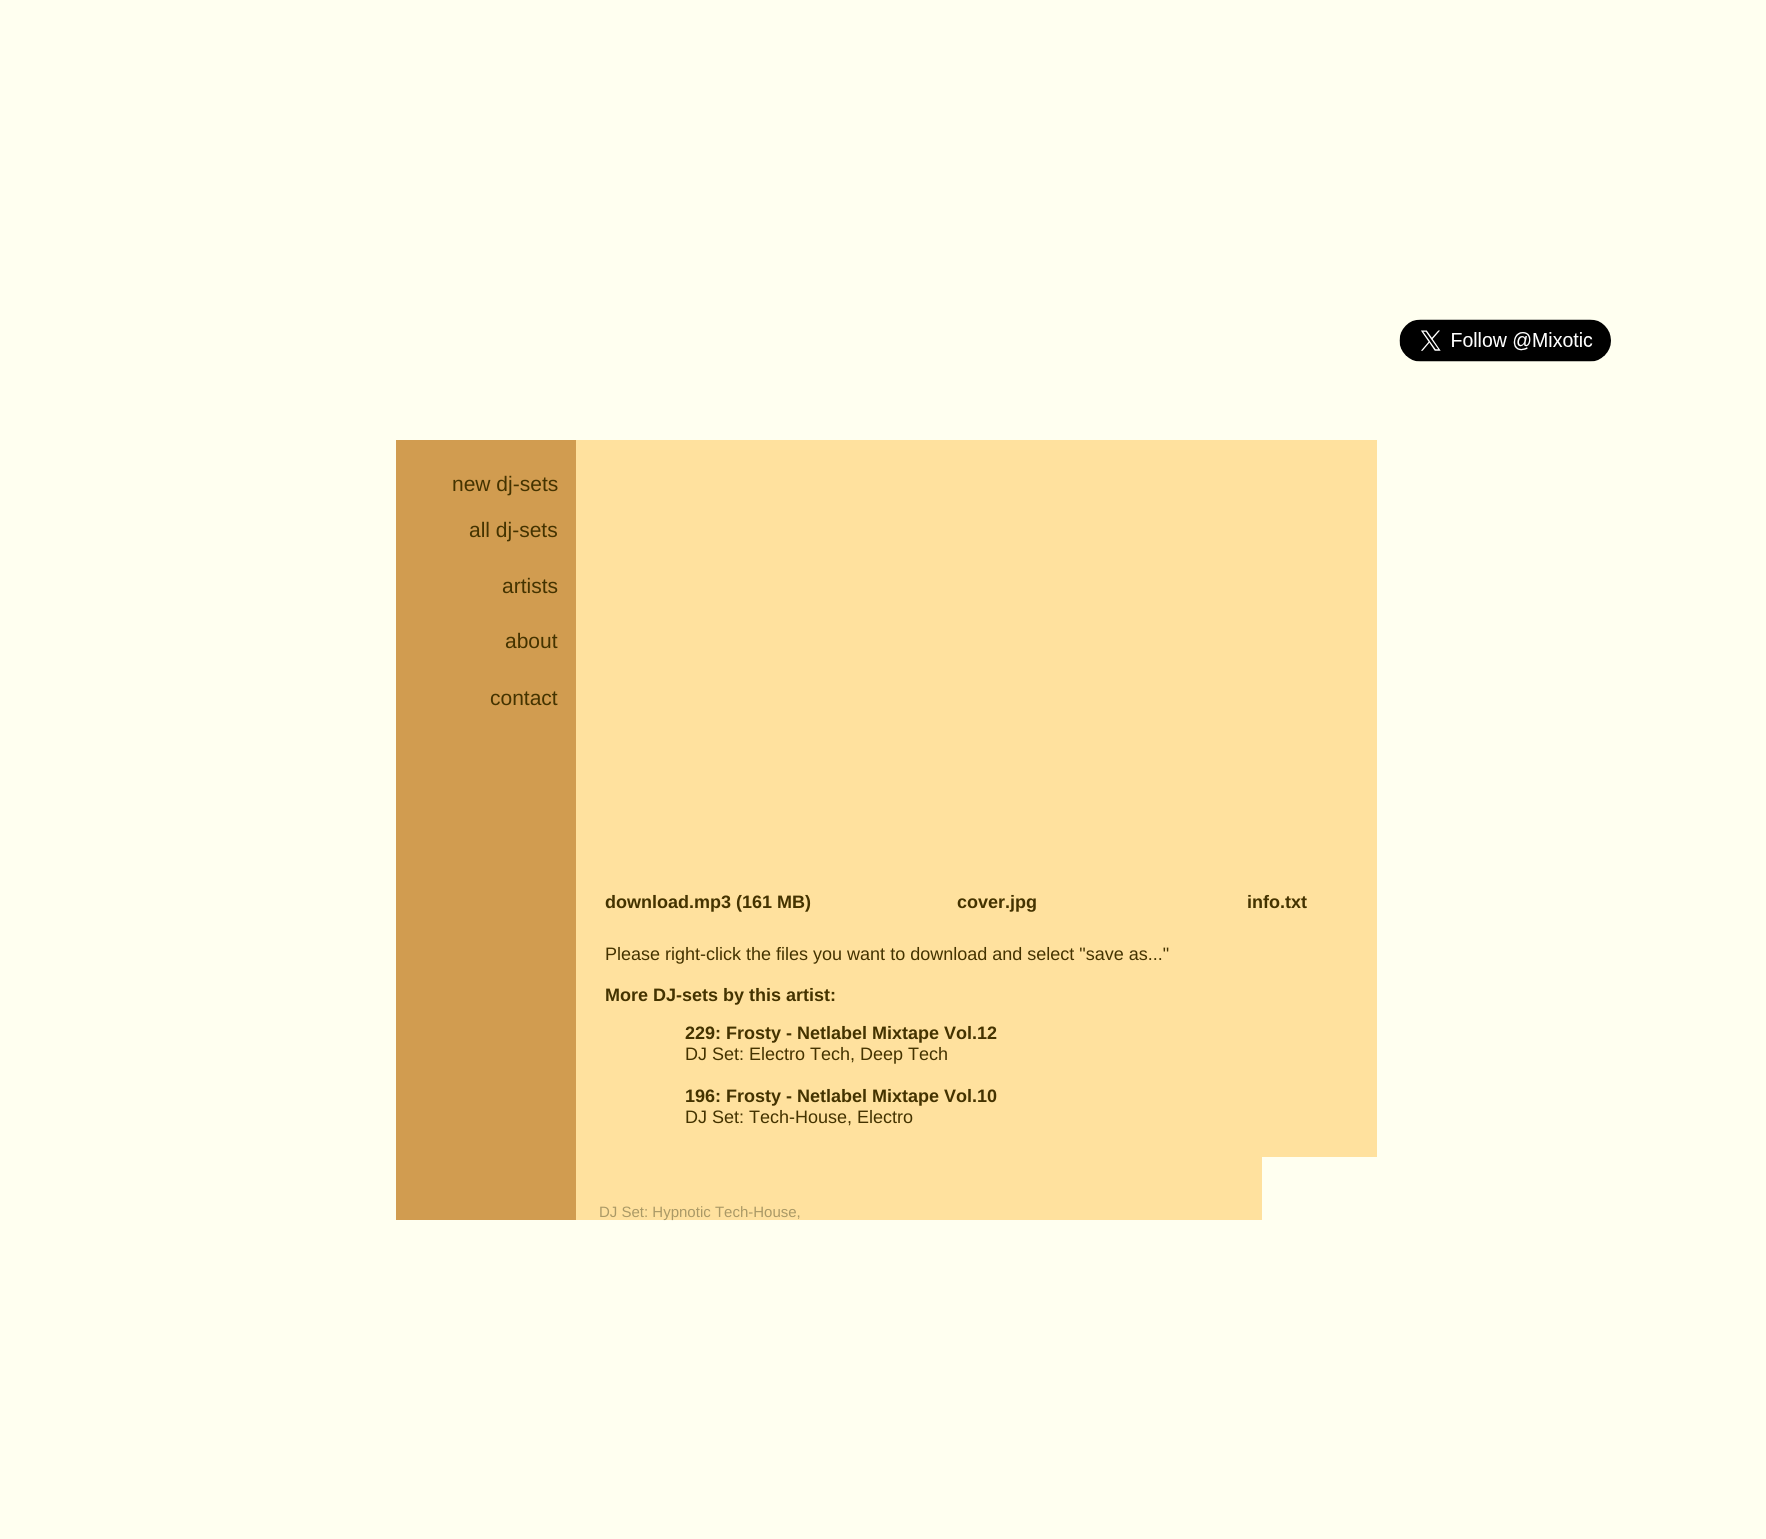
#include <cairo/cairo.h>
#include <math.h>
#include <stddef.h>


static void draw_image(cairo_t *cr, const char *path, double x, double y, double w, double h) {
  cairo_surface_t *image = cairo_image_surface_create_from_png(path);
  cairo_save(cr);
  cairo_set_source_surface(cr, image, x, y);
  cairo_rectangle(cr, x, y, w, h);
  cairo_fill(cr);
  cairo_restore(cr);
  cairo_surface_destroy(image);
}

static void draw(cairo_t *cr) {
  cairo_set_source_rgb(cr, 1, 1, 240 / 255.0);
  cairo_paint(cr);
  draw_image(cr, "images/1.png", 1399, 319, 212, 43);
  cairo_set_source_rgb(cr, 209 / 255.0, 156 / 255.0, 80 / 255.0);
  cairo_rectangle(cr, 396, 440, 180, 780);
  cairo_fill(cr);
  cairo_set_source_rgb(cr, 1, 225 / 255.0, 158 / 255.0);
  cairo_rectangle(cr, 576, 440, 801, 717);
  cairo_fill(cr);
  cairo_rectangle(cr, 576, 1157, 686, 63);
  cairo_fill(cr);
  cairo_select_font_face(cr, "Liberation Sans", CAIRO_FONT_SLANT_NORMAL, CAIRO_FONT_WEIGHT_NORMAL);
  cairo_set_font_size(cr, 21);
  cairo_set_source_rgb(cr, 68 / 255.0, 51 / 255.0, 0);
  cairo_move_to(cr, 452, 491);
  cairo_show_text(cr, "new dj-sets");
  cairo_move_to(cr, 469, 537);
  cairo_show_text(cr, "all dj-sets");
  cairo_move_to(cr, 502, 593);
  cairo_show_text(cr, "artists");
  cairo_move_to(cr, 505, 648);
  cairo_show_text(cr, "about");
  cairo_move_to(cr, 490, 705);
  cairo_show_text(cr, "contact");
  cairo_select_font_face(cr, "Liberation Sans", CAIRO_FONT_SLANT_NORMAL, CAIRO_FONT_WEIGHT_BOLD);
  cairo_set_font_size(cr, 18);
  cairo_move_to(cr, 605, 908);
  cairo_show_text(cr, "download.mp3 (161 MB)");
  cairo_move_to(cr, 957, 908);
  cairo_show_text(cr, "cover.jpg");
  cairo_move_to(cr, 1247, 908);
  cairo_show_text(cr, "info.txt");
  cairo_select_font_face(cr, "Liberation Sans", CAIRO_FONT_SLANT_NORMAL, CAIRO_FONT_WEIGHT_NORMAL);
  cairo_move_to(cr, 605, 960);
  cairo_show_text(cr, "Please right-click the files you want to download and select \"save as...\"");
  cairo_select_font_face(cr, "Liberation Sans", CAIRO_FONT_SLANT_NORMAL, CAIRO_FONT_WEIGHT_BOLD);
  cairo_move_to(cr, 605, 1001);
  cairo_show_text(cr, "More DJ-sets by this artist:");
  cairo_move_to(cr, 685, 1039);
  cairo_show_text(cr, "229: Frosty - Netlabel Mixtape Vol.12");
  cairo_select_font_face(cr, "Liberation Sans", CAIRO_FONT_SLANT_NORMAL, CAIRO_FONT_WEIGHT_NORMAL);
  cairo_move_to(cr, 685, 1060);
  cairo_show_text(cr, "DJ Set: Electro Tech, Deep Tech");
  cairo_select_font_face(cr, "Liberation Sans", CAIRO_FONT_SLANT_NORMAL, CAIRO_FONT_WEIGHT_BOLD);
  cairo_move_to(cr, 685, 1102);
  cairo_show_text(cr, "196: Frosty - Netlabel Mixtape Vol.10");
  cairo_select_font_face(cr, "Liberation Sans", CAIRO_FONT_SLANT_NORMAL, CAIRO_FONT_WEIGHT_NORMAL);
  cairo_move_to(cr, 685, 1123);
  cairo_show_text(cr, "DJ Set: Tech-House, Electro");
  cairo_set_font_size(cr, 15);
  cairo_set_source_rgb(cr, 170 / 255.0, 153 / 255.0, 102 / 255.0);
  cairo_move_to(cr, 599, 1217);
  cairo_show_text(cr, "DJ Set: Hypnotic Tech-House,");
}

int main(void) {
  cairo_surface_t *surface = cairo_image_surface_create(CAIRO_FORMAT_RGB24, 1766, 1539);
  cairo_t *cr = cairo_create(surface);
  cairo_font_options_t *options = cairo_font_options_create();
  cairo_font_options_set_hint_metrics(options, CAIRO_HINT_METRICS_OFF);
  cairo_font_options_set_hint_style(options, CAIRO_HINT_STYLE_NONE);
  cairo_set_font_options(cr, options);
  cairo_set_miter_limit(cr, 4);
  draw(cr);
  cairo_surface_write_to_png(surface, "out.png");
  cairo_font_options_destroy(options);
  cairo_destroy(cr);
  cairo_surface_destroy(surface);
  return 0;
}
